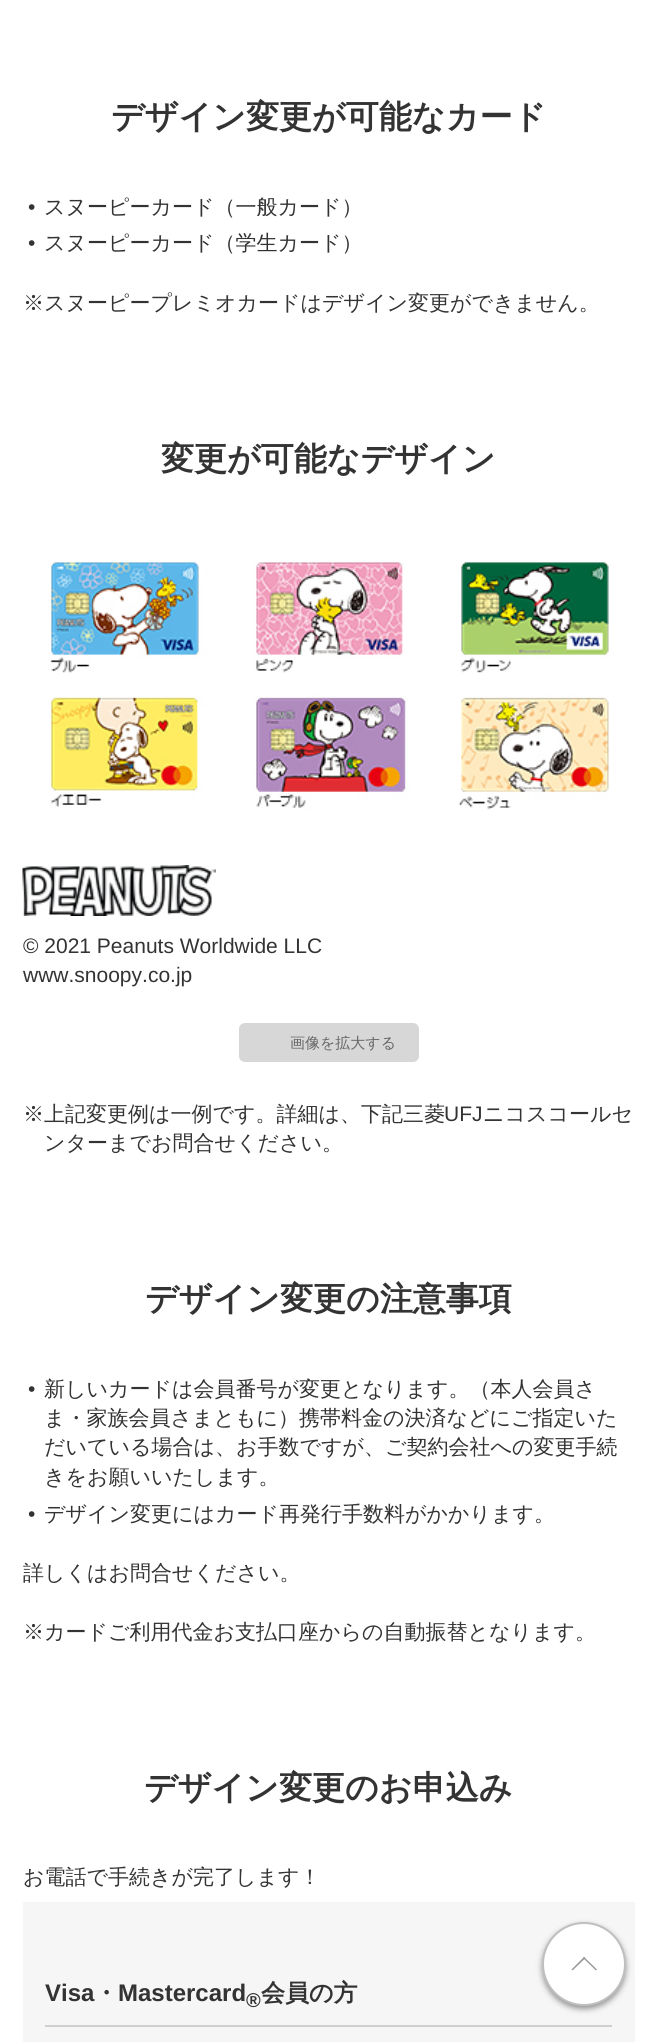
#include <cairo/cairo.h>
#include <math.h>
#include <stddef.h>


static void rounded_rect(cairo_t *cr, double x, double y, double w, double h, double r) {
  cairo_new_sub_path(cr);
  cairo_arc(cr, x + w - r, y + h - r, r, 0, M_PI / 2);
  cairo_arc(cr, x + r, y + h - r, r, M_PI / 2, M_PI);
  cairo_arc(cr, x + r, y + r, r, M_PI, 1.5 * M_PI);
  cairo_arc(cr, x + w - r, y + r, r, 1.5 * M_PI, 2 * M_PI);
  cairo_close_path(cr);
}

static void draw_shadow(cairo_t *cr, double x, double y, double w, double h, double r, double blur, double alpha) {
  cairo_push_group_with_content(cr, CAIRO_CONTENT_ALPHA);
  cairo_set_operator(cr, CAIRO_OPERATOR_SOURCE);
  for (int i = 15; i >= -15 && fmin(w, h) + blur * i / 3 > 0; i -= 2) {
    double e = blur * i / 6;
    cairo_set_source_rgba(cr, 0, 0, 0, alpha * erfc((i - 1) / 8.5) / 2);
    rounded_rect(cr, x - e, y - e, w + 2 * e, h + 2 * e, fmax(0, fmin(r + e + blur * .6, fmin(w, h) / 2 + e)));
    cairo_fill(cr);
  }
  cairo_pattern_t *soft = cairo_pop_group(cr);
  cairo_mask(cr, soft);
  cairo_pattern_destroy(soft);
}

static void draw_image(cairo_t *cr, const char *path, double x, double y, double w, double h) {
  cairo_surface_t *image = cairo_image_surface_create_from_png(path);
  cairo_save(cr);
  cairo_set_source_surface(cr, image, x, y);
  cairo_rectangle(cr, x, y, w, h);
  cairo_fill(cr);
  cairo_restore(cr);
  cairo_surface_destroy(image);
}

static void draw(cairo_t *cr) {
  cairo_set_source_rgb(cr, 1, 1, 1);
  cairo_paint(cr);
  draw_image(cr, "images/1.png", 49, 562, 560, 248);
  draw_image(cr, "images/2.png", 22, 865, 194, 51);
  cairo_set_source_rgb(cr, 215 / 255.0, 215 / 255.0, 215 / 255.0);
  rounded_rect(cr, 239, 1023, 180, 39, 6);
  cairo_fill(cr);
  cairo_set_source_rgb(cr, 246 / 255.0, 246 / 255.0, 246 / 255.0);
  cairo_rectangle(cr, 23, 1902, 612, 140);
  cairo_fill(cr);
  cairo_set_source_rgb(cr, 207 / 255.0, 207 / 255.0, 207 / 255.0);
  cairo_rectangle(cr, 45, 2025, 567, 2);
  cairo_fill(cr);
  cairo_set_source_rgb(cr, 0, 0, 0);
  draw_shadow(cr, 542, 1925, 84, 84, 42, 3, 0.4);
  cairo_set_source_rgb(cr, 1, 1, 1);
  cairo_arc(cr, 584, 1964, 41, 0, 2 * M_PI);
  cairo_fill_preserve(cr);
  cairo_set_source_rgb(cr, 191 / 255.0, 191 / 255.0, 191 / 255.0);
  cairo_stroke(cr);
  cairo_set_source_rgb(cr, 152 / 255.0, 152 / 255.0, 152 / 255.0);
  cairo_new_path(cr);
  cairo_move_to(cr, 571.5, 1969.5);
  cairo_line_to(cr, 584, 1957);
  cairo_line_to(cr, 585.5, 1958);
  cairo_line_to(cr, 572.5, 1970.5);
  cairo_close_path(cr);
  cairo_fill(cr);
  cairo_new_path(cr);
  cairo_move_to(cr, 583, 1958);
  cairo_line_to(cr, 584, 1957);
  cairo_line_to(cr, 597, 1969.5);
  cairo_line_to(cr, 596, 1970.5);
  cairo_close_path(cr);
  cairo_fill(cr);
  cairo_select_font_face(cr, "WenQuanYi Zen Hei", CAIRO_FONT_SLANT_NORMAL, CAIRO_FONT_WEIGHT_BOLD);
  cairo_set_font_size(cr, 33);
  cairo_set_source_rgb(cr, 51 / 255.0, 51 / 255.0, 51 / 255.0);
  cairo_move_to(cr, 111, 128);
  cairo_show_text(cr, "デザイン変更が可能なカード");
  cairo_select_font_face(cr, "Liberation Sans", CAIRO_FONT_SLANT_NORMAL, CAIRO_FONT_WEIGHT_NORMAL);
  cairo_set_font_size(cr, 21);
  cairo_move_to(cr, 28, 214);
  cairo_show_text(cr, "•");
  cairo_select_font_face(cr, "WenQuanYi Zen Hei Medium", CAIRO_FONT_SLANT_NORMAL, CAIRO_FONT_WEIGHT_NORMAL);
  cairo_move_to(cr, 44, 214);
  cairo_show_text(cr, "スヌーピーカード（一般カード）");
  cairo_select_font_face(cr, "Liberation Sans", CAIRO_FONT_SLANT_NORMAL, CAIRO_FONT_WEIGHT_NORMAL);
  cairo_move_to(cr, 28, 250);
  cairo_show_text(cr, "•");
  cairo_select_font_face(cr, "WenQuanYi Zen Hei Medium", CAIRO_FONT_SLANT_NORMAL, CAIRO_FONT_WEIGHT_NORMAL);
  cairo_move_to(cr, 44, 250);
  cairo_show_text(cr, "スヌーピーカード（学生カード）");
  cairo_move_to(cr, 23, 310);
  cairo_show_text(cr, "※");
  cairo_move_to(cr, 44, 310);
  cairo_show_text(cr, "スヌーピープレミオカードはデザイン変更ができません。");
  cairo_select_font_face(cr, "WenQuanYi Zen Hei", CAIRO_FONT_SLANT_NORMAL, CAIRO_FONT_WEIGHT_BOLD);
  cairo_set_font_size(cr, 33);
  cairo_move_to(cr, 161, 470);
  cairo_show_text(cr, "変更が可能なデザイン");
  cairo_select_font_face(cr, "Liberation Sans", CAIRO_FONT_SLANT_NORMAL, CAIRO_FONT_WEIGHT_NORMAL);
  cairo_set_font_size(cr, 21);
  cairo_move_to(cr, 23, 953);
  cairo_show_text(cr, "© 2021 Peanuts Worldwide LLC");
  cairo_move_to(cr, 23, 982);
  cairo_show_text(cr, "www.snoopy.co.jp");
  cairo_select_font_face(cr, "WenQuanYi Zen Hei Medium", CAIRO_FONT_SLANT_NORMAL, CAIRO_FONT_WEIGHT_NORMAL);
  cairo_set_font_size(cr, 15);
  cairo_set_source_rgb(cr, 102 / 255.0, 102 / 255.0, 102 / 255.0);
  cairo_move_to(cr, 290, 1048);
  cairo_show_text(cr, "画像を拡大する");
  cairo_set_font_size(cr, 21);
  cairo_set_source_rgb(cr, 51 / 255.0, 51 / 255.0, 51 / 255.0);
  cairo_move_to(cr, 23, 1121);
  cairo_show_text(cr, "※");
  cairo_move_to(cr, 44, 1121);
  cairo_show_text(cr, "上記変更例は一例です。詳細は、下記三菱");
  cairo_select_font_face(cr, "Liberation Sans", CAIRO_FONT_SLANT_NORMAL, CAIRO_FONT_WEIGHT_NORMAL);
  cairo_move_to(cr, 444, 1121);
  cairo_show_text(cr, "UFJ");
  cairo_select_font_face(cr, "WenQuanYi Zen Hei Medium", CAIRO_FONT_SLANT_NORMAL, CAIRO_FONT_WEIGHT_NORMAL);
  cairo_move_to(cr, 483, 1121);
  cairo_show_text(cr, "ニコスコールセ");
  cairo_move_to(cr, 44, 1150);
  cairo_show_text(cr, "ンターまでお問合せください。");
  cairo_select_font_face(cr, "WenQuanYi Zen Hei", CAIRO_FONT_SLANT_NORMAL, CAIRO_FONT_WEIGHT_BOLD);
  cairo_set_font_size(cr, 33);
  cairo_move_to(cr, 145, 1310);
  cairo_show_text(cr, "デザイン変更の注意事項");
  cairo_select_font_face(cr, "Liberation Sans", CAIRO_FONT_SLANT_NORMAL, CAIRO_FONT_WEIGHT_NORMAL);
  cairo_set_font_size(cr, 21);
  cairo_move_to(cr, 28, 1396);
  cairo_show_text(cr, "•");
  cairo_select_font_face(cr, "WenQuanYi Zen Hei Medium", CAIRO_FONT_SLANT_NORMAL, CAIRO_FONT_WEIGHT_NORMAL);
  cairo_move_to(cr, 44, 1396);
  cairo_show_text(cr, "新しいカードは会員番号が変更となります。（本人会員さ");
  cairo_move_to(cr, 44, 1425);
  cairo_show_text(cr, "ま・家族会員さまともに）携帯料金の決済などにご指定いた");
  cairo_move_to(cr, 44, 1454);
  cairo_show_text(cr, "だいている場合は、お手数ですが、ご契約会社への変更手続");
  cairo_move_to(cr, 44, 1484);
  cairo_show_text(cr, "きをお願いいたします。");
  cairo_select_font_face(cr, "Liberation Sans", CAIRO_FONT_SLANT_NORMAL, CAIRO_FONT_WEIGHT_NORMAL);
  cairo_move_to(cr, 28, 1521);
  cairo_show_text(cr, "•");
  cairo_select_font_face(cr, "WenQuanYi Zen Hei Medium", CAIRO_FONT_SLANT_NORMAL, CAIRO_FONT_WEIGHT_NORMAL);
  cairo_move_to(cr, 44, 1521);
  cairo_show_text(cr, "デザイン変更にはカード再発行手数料がかかります。");
  cairo_move_to(cr, 23, 1580);
  cairo_show_text(cr, "詳しくはお問合せください。");
  cairo_move_to(cr, 23, 1639);
  cairo_show_text(cr, "※");
  cairo_move_to(cr, 44, 1639);
  cairo_show_text(cr, "カードご利用代金お支払口座からの自動振替となります。");
  cairo_select_font_face(cr, "WenQuanYi Zen Hei", CAIRO_FONT_SLANT_NORMAL, CAIRO_FONT_WEIGHT_BOLD);
  cairo_set_font_size(cr, 33);
  cairo_move_to(cr, 144, 1799);
  cairo_show_text(cr, "デザイン変更のお申込み");
  cairo_select_font_face(cr, "WenQuanYi Zen Hei Medium", CAIRO_FONT_SLANT_NORMAL, CAIRO_FONT_WEIGHT_NORMAL);
  cairo_set_font_size(cr, 21);
  cairo_move_to(cr, 23, 1884);
  cairo_show_text(cr, "お電話で手続きが完了します！");
  cairo_select_font_face(cr, "Liberation Sans", CAIRO_FONT_SLANT_NORMAL, CAIRO_FONT_WEIGHT_BOLD);
  cairo_set_font_size(cr, 24);
  cairo_move_to(cr, 45, 2001);
  cairo_show_text(cr, "Visa");
  cairo_select_font_face(cr, "WenQuanYi Zen Hei", CAIRO_FONT_SLANT_NORMAL, CAIRO_FONT_WEIGHT_BOLD);
  cairo_move_to(cr, 94, 2001);
  cairo_show_text(cr, "・");
  cairo_select_font_face(cr, "Liberation Sans", CAIRO_FONT_SLANT_NORMAL, CAIRO_FONT_WEIGHT_BOLD);
  cairo_move_to(cr, 118, 2001);
  cairo_show_text(cr, "Mastercard");
  cairo_select_font_face(cr, "WenQuanYi Zen Hei", CAIRO_FONT_SLANT_NORMAL, CAIRO_FONT_WEIGHT_BOLD);
  cairo_move_to(cr, 261, 2001);
  cairo_show_text(cr, "会員の方");
  cairo_select_font_face(cr, "Liberation Sans", CAIRO_FONT_SLANT_NORMAL, CAIRO_FONT_WEIGHT_BOLD);
  cairo_set_font_size(cr, 20);
  cairo_move_to(cr, 246, 2007);
  cairo_show_text(cr, "®");
}

int main(void) {
  cairo_surface_t *surface = cairo_image_surface_create(CAIRO_FORMAT_RGB24, 657, 2042);
  cairo_t *cr = cairo_create(surface);
  cairo_font_options_t *options = cairo_font_options_create();
  cairo_font_options_set_hint_metrics(options, CAIRO_HINT_METRICS_OFF);
  cairo_font_options_set_hint_style(options, CAIRO_HINT_STYLE_NONE);
  cairo_set_font_options(cr, options);
  cairo_set_miter_limit(cr, 4);
  draw(cr);
  cairo_surface_write_to_png(surface, "out.png");
  cairo_font_options_destroy(options);
  cairo_destroy(cr);
  cairo_surface_destroy(surface);
  return 0;
}
